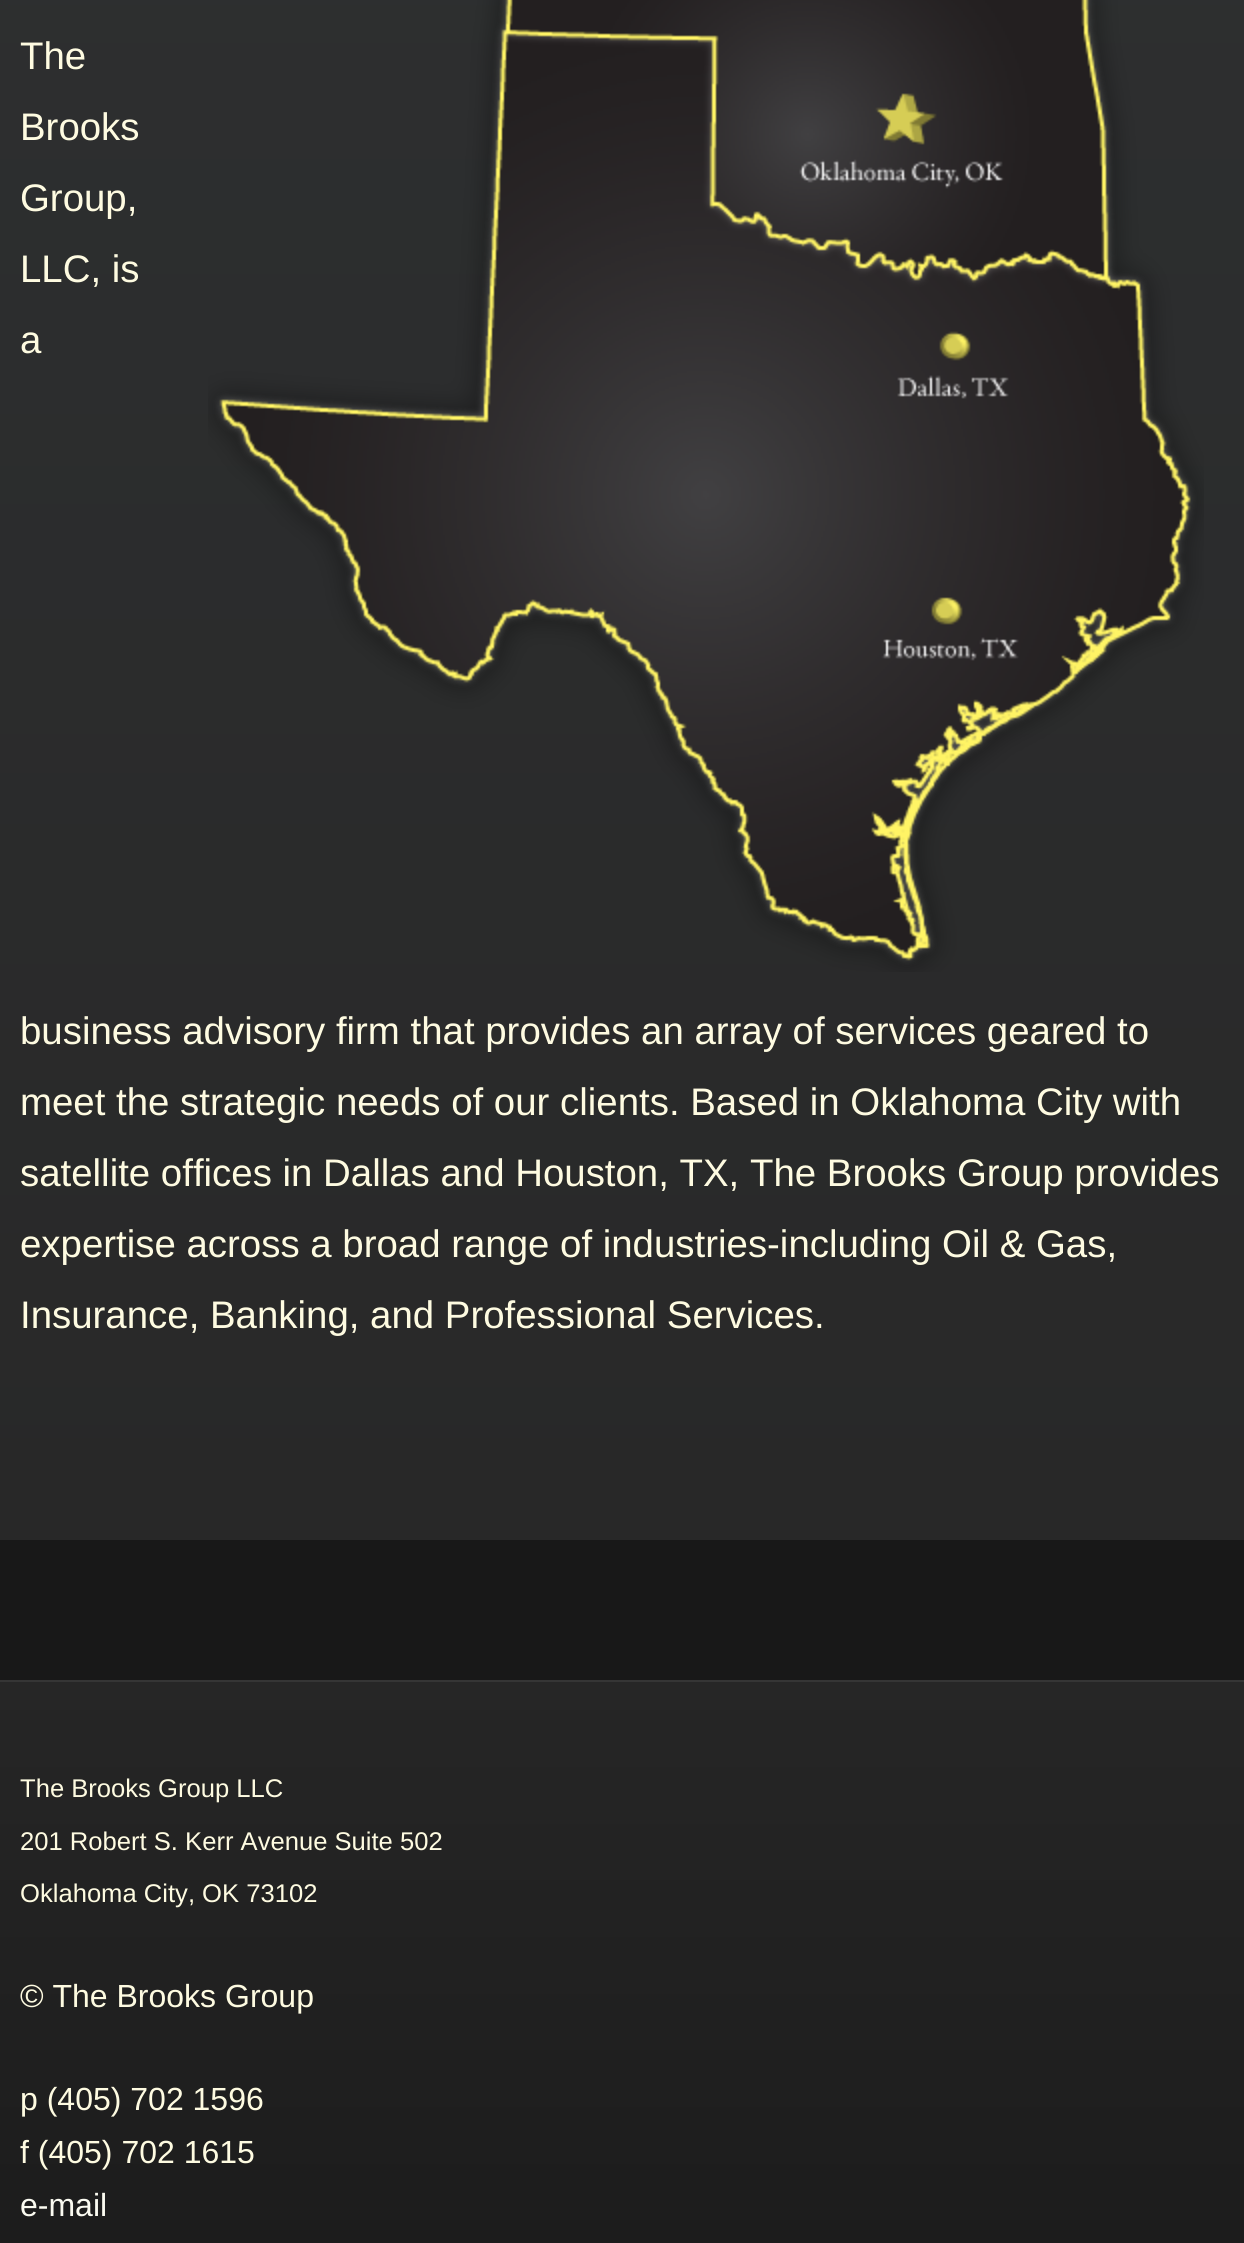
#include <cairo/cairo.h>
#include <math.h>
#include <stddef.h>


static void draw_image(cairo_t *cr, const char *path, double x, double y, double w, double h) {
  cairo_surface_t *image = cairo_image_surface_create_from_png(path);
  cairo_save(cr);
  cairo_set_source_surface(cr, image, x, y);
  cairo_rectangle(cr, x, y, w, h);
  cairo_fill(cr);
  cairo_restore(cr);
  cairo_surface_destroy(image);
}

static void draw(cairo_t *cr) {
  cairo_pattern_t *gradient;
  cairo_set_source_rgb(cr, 1, 1, 1);
  cairo_paint(cr);
  gradient = cairo_pattern_create_linear(622, -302, 622, 1540);
  cairo_pattern_add_color_stop_rgba(gradient, 0, 46 / 255.0, 48 / 255.0, 49 / 255.0, 1);
  cairo_pattern_add_color_stop_rgba(gradient, 1, 40 / 255.0, 40 / 255.0, 40 / 255.0, 1);
  cairo_set_source(cr, gradient);
  cairo_pattern_destroy(gradient);
  cairo_rectangle(cr, 0, 0, 1244, 1540);
  cairo_fill(cr);
  draw_image(cr, "images/1.png", 208, 0, 996, 972);
  cairo_set_source_rgb(cr, 24 / 255.0, 24 / 255.0, 24 / 255.0);
  cairo_rectangle(cr, 0, 1540, 1244, 140);
  cairo_fill(cr);
  gradient = cairo_pattern_create_linear(622, 1682, 622, 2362);
  cairo_pattern_add_color_stop_rgba(gradient, 0, 38 / 255.0, 38 / 255.0, 38 / 255.0, 1);
  cairo_pattern_add_color_stop_rgba(gradient, 1, 26 / 255.0, 26 / 255.0, 26 / 255.0, 1);
  cairo_set_source(cr, gradient);
  cairo_pattern_destroy(gradient);
  cairo_rectangle(cr, 0, 1682, 1244, 561);
  cairo_fill(cr);
  cairo_set_source_rgb(cr, 53 / 255.0, 53 / 255.0, 53 / 255.0);
  cairo_rectangle(cr, 0, 1680, 1244, 2);
  cairo_fill(cr);
  cairo_select_font_face(cr, "Liberation Sans", CAIRO_FONT_SLANT_NORMAL, CAIRO_FONT_WEIGHT_NORMAL);
  cairo_set_font_size(cr, 38.4);
  cairo_set_source_rgb(cr, 254 / 255.0, 251 / 255.0, 225 / 255.0);
  cairo_move_to(cr, 20, 69);
  cairo_show_text(cr, "The");
  cairo_move_to(cr, 20, 140);
  cairo_show_text(cr, "Brooks");
  cairo_move_to(cr, 20, 211);
  cairo_show_text(cr, "Group,");
  cairo_move_to(cr, 20, 282);
  cairo_show_text(cr, "LLC, is");
  cairo_move_to(cr, 20, 353);
  cairo_show_text(cr, "a");
  cairo_move_to(cr, 20, 1044);
  cairo_show_text(cr, "business advisory firm that provides an array of services geared to");
  cairo_move_to(cr, 20, 1115);
  cairo_show_text(cr, "meet the strategic needs of our clients. Based in Oklahoma City with");
  cairo_move_to(cr, 20, 1186);
  cairo_show_text(cr, "satellite offices in Dallas and Houston, TX, The Brooks Group provides");
  cairo_move_to(cr, 20, 1257);
  cairo_show_text(cr, "expertise across a broad range of industries-including Oil & Gas,");
  cairo_move_to(cr, 20, 1328);
  cairo_show_text(cr, "Insurance, Banking, and Professional Services.");
  cairo_set_font_size(cr, 25.6);
  cairo_move_to(cr, 20, 1797);
  cairo_show_text(cr, "The Brooks Group LLC");
  cairo_move_to(cr, 20, 1850);
  cairo_show_text(cr, "201 Robert S. Kerr Avenue Suite 502");
  cairo_move_to(cr, 20, 1902);
  cairo_show_text(cr, "Oklahoma City, OK 73102");
  cairo_set_font_size(cr, 32);
  cairo_move_to(cr, 20, 2007);
  cairo_show_text(cr, "© The Brooks Group");
  cairo_move_to(cr, 20, 2110);
  cairo_show_text(cr, "p (405) 702 1596");
  cairo_move_to(cr, 20, 2163);
  cairo_show_text(cr, "f (405) 702 1615");
  cairo_set_source_rgb(cr, 251 / 255.0, 251 / 255.0, 241 / 255.0);
  cairo_move_to(cr, 20, 2216);
  cairo_show_text(cr, "e-mail");
}

int main(void) {
  cairo_surface_t *surface = cairo_image_surface_create(CAIRO_FORMAT_RGB24, 1244, 2243);
  cairo_t *cr = cairo_create(surface);
  cairo_font_options_t *options = cairo_font_options_create();
  cairo_font_options_set_hint_metrics(options, CAIRO_HINT_METRICS_OFF);
  cairo_font_options_set_hint_style(options, CAIRO_HINT_STYLE_NONE);
  cairo_set_font_options(cr, options);
  cairo_set_miter_limit(cr, 4);
  draw(cr);
  cairo_surface_write_to_png(surface, "out.png");
  cairo_font_options_destroy(options);
  cairo_destroy(cr);
  cairo_surface_destroy(surface);
  return 0;
}
